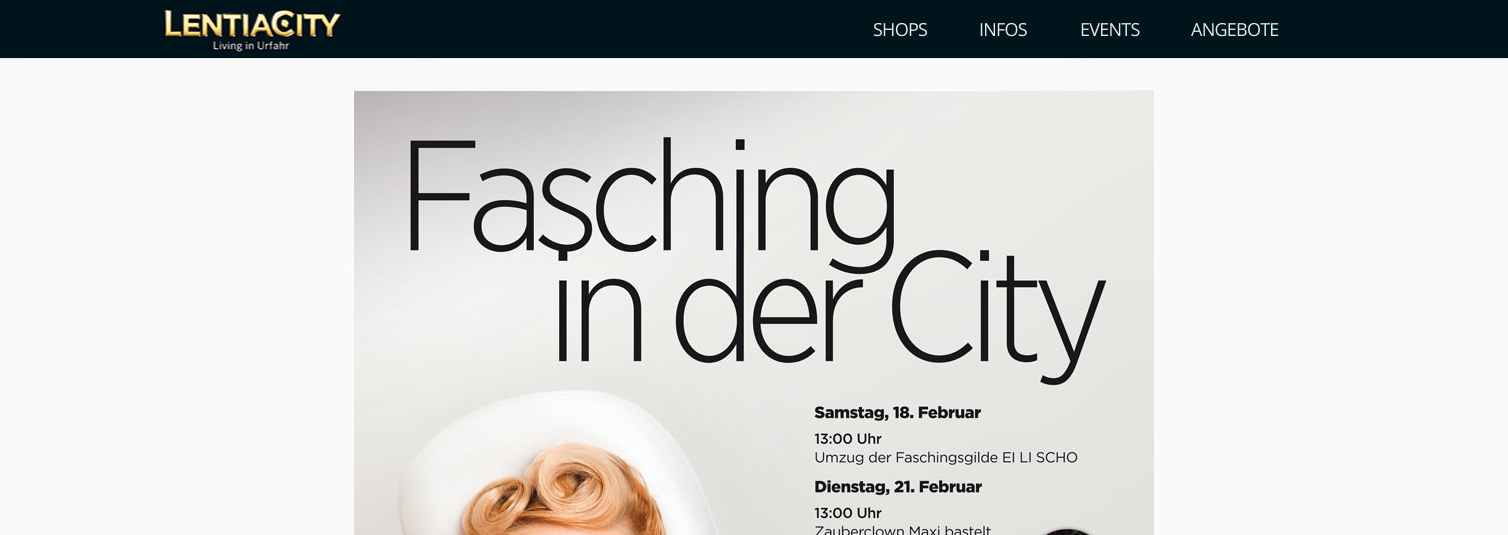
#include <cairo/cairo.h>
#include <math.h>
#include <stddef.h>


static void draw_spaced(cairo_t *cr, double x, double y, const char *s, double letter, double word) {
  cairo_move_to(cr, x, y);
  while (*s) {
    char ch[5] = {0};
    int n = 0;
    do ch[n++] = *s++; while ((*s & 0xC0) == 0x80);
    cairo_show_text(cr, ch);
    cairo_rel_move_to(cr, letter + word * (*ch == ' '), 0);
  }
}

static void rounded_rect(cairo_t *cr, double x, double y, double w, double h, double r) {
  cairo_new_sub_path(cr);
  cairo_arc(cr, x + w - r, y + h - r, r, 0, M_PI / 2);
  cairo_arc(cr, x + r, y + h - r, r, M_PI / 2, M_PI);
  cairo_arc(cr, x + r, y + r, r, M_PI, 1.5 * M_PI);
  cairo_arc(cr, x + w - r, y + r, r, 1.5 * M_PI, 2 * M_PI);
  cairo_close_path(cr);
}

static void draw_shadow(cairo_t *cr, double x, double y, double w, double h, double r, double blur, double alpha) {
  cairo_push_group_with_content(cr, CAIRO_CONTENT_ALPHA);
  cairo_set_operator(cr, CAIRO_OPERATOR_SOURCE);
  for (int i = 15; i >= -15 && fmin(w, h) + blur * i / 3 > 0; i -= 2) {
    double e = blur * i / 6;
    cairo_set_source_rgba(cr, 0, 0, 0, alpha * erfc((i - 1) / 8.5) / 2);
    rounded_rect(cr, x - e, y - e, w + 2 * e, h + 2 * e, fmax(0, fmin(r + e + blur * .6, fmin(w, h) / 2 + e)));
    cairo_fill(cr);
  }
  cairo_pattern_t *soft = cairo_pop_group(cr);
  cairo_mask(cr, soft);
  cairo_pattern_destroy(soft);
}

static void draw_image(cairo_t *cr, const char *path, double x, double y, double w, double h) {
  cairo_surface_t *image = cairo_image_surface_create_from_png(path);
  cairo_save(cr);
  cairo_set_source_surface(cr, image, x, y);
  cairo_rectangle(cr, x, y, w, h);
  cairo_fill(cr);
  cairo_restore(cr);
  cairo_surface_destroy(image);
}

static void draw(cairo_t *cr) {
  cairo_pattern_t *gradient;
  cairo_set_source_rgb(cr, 1, 1, 1);
  cairo_paint(cr);
  gradient = cairo_pattern_create_radial(0, 0, 0, 0, 0, 1);
  cairo_pattern_set_matrix(gradient, &(cairo_matrix_t){1.0 / 1066, 0, 0, 1.0 / 378, -1.0 * 754 / 1066, -1.0 * 268 / 378});
  cairo_pattern_add_color_stop_rgba(gradient, 0, 252 / 255.0, 252 / 255.0, 252 / 255.0, 1);
  cairo_pattern_add_color_stop_rgba(gradient, 1, 248 / 255.0, 248 / 255.0, 248 / 255.0, 1);
  cairo_set_source(cr, gradient);
  cairo_pattern_destroy(gradient);
  cairo_rectangle(cr, 0, 58, 1508, 477);
  cairo_fill(cr);
  cairo_set_source_rgb(cr, 0, 0, 0);
  draw_shadow(cr, 0, 0, 1508, 58, 0, 1, 0.2);
  cairo_set_source_rgb(cr, 0, 20 / 255.0, 27 / 255.0);
  cairo_rectangle(cr, 0, 0, 1508, 58);
  cairo_fill(cr);
  draw_image(cr, "images/1.png", 163, 7, 180, 46);
  draw_image(cr, "images/2.png", 354, 90, 800, 311);
  draw_image(cr, "images/3.png", 354, 401, 800, 134);
  cairo_select_font_face(cr, "Open Sans", CAIRO_FONT_SLANT_NORMAL, CAIRO_FONT_WEIGHT_NORMAL);
  cairo_set_font_size(cr, 18);
  cairo_set_source_rgb(cr, 230 / 255.0, 232 / 255.0, 232 / 255.0);
  draw_spaced(cr, 873, 36, "SHOPS", -0.75, 0);
  draw_spaced(cr, 979, 36, "INFOS", -0.75, 0);
  draw_spaced(cr, 1080, 36, "EVENTS", -0.75, 0);
  draw_spaced(cr, 1191, 36, "ANGEBOTE", -0.75, 0);
}

int main(void) {
  cairo_surface_t *surface = cairo_image_surface_create(CAIRO_FORMAT_RGB24, 1508, 535);
  cairo_t *cr = cairo_create(surface);
  cairo_font_options_t *options = cairo_font_options_create();
  cairo_font_options_set_hint_metrics(options, CAIRO_HINT_METRICS_OFF);
  cairo_font_options_set_hint_style(options, CAIRO_HINT_STYLE_NONE);
  cairo_set_font_options(cr, options);
  cairo_set_miter_limit(cr, 4);
  draw(cr);
  cairo_surface_write_to_png(surface, "out.png");
  cairo_font_options_destroy(options);
  cairo_destroy(cr);
  cairo_surface_destroy(surface);
  return 0;
}
